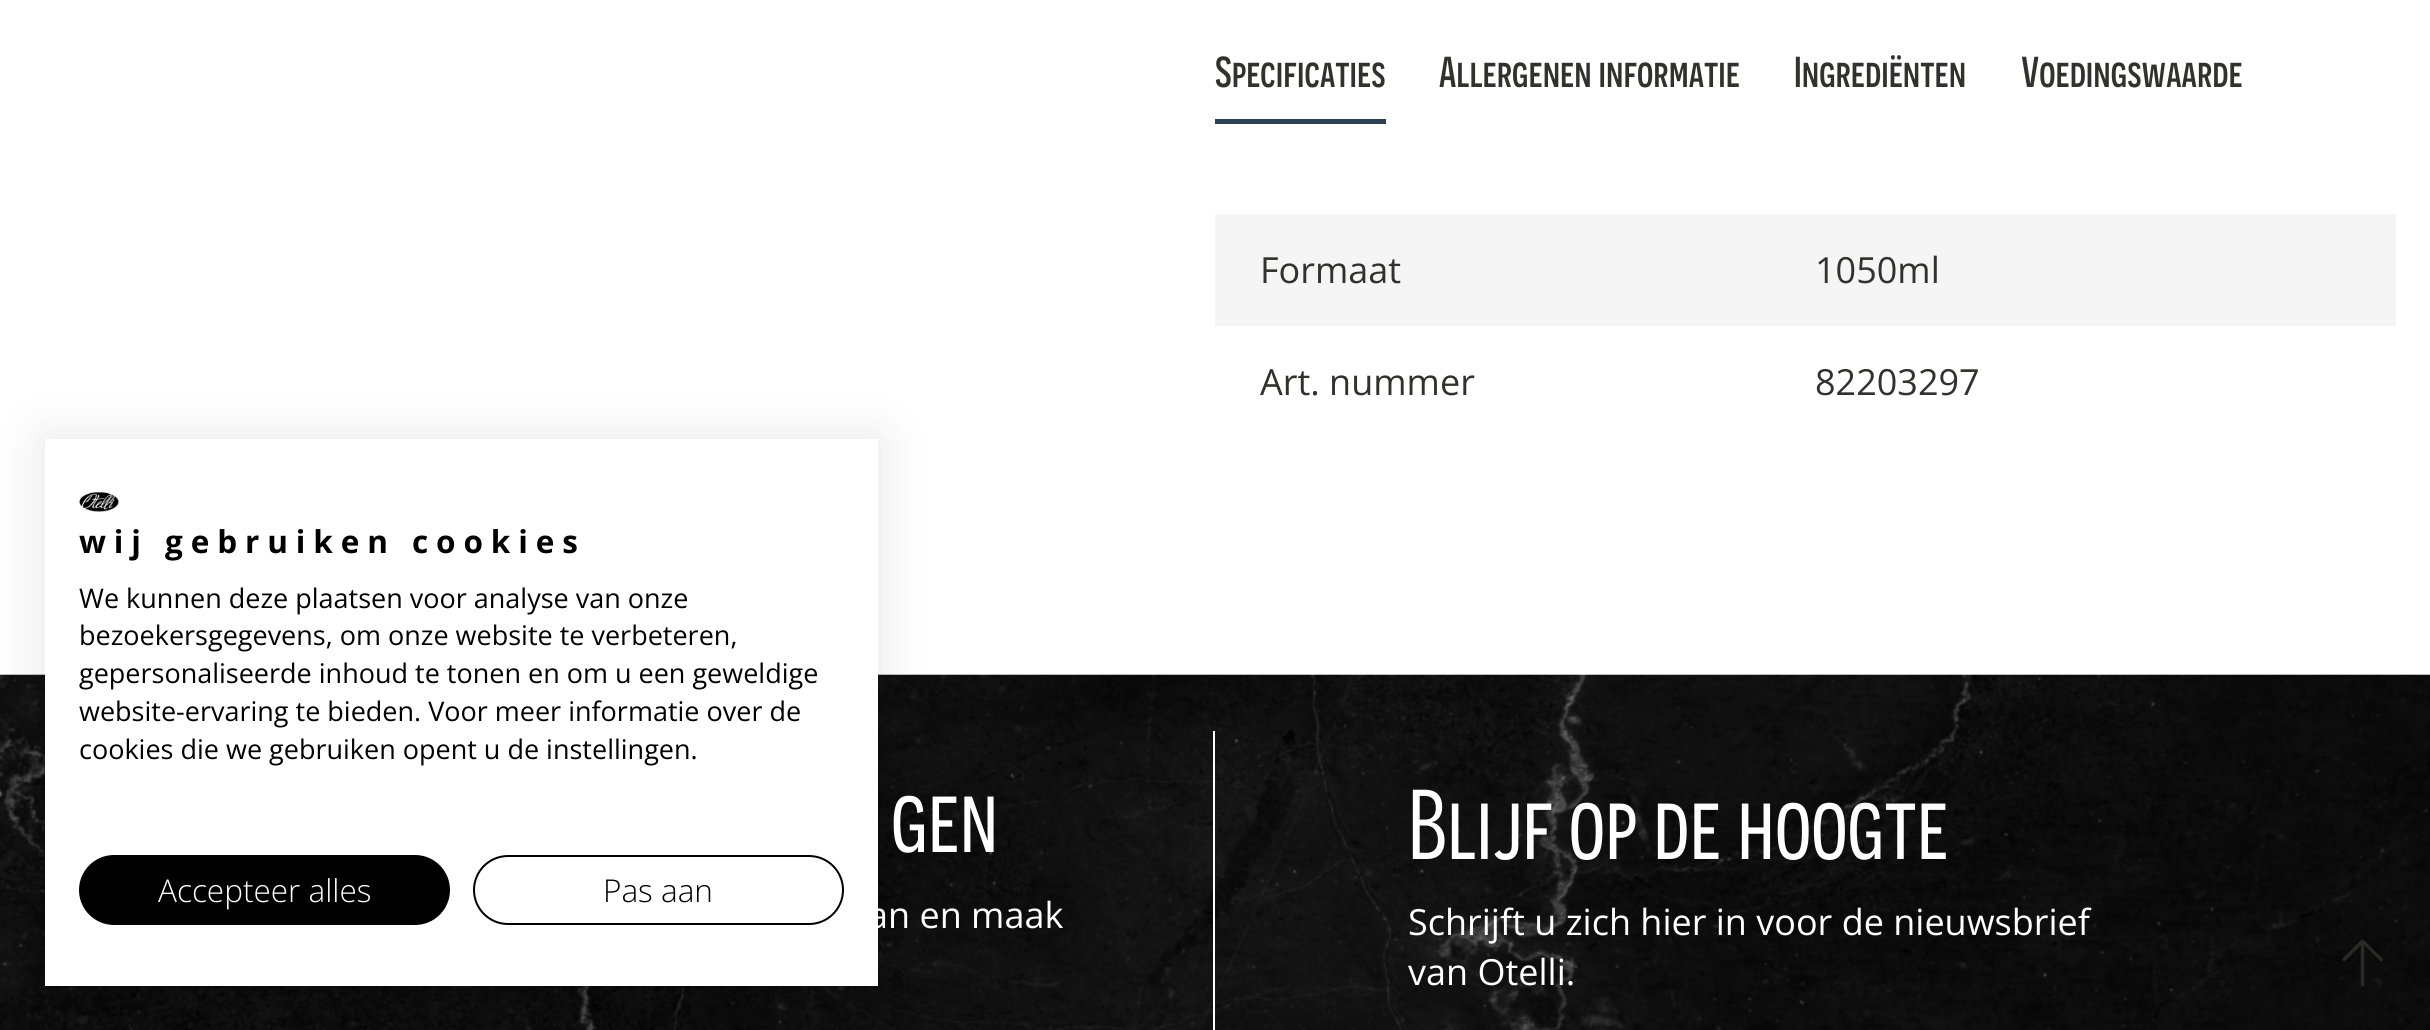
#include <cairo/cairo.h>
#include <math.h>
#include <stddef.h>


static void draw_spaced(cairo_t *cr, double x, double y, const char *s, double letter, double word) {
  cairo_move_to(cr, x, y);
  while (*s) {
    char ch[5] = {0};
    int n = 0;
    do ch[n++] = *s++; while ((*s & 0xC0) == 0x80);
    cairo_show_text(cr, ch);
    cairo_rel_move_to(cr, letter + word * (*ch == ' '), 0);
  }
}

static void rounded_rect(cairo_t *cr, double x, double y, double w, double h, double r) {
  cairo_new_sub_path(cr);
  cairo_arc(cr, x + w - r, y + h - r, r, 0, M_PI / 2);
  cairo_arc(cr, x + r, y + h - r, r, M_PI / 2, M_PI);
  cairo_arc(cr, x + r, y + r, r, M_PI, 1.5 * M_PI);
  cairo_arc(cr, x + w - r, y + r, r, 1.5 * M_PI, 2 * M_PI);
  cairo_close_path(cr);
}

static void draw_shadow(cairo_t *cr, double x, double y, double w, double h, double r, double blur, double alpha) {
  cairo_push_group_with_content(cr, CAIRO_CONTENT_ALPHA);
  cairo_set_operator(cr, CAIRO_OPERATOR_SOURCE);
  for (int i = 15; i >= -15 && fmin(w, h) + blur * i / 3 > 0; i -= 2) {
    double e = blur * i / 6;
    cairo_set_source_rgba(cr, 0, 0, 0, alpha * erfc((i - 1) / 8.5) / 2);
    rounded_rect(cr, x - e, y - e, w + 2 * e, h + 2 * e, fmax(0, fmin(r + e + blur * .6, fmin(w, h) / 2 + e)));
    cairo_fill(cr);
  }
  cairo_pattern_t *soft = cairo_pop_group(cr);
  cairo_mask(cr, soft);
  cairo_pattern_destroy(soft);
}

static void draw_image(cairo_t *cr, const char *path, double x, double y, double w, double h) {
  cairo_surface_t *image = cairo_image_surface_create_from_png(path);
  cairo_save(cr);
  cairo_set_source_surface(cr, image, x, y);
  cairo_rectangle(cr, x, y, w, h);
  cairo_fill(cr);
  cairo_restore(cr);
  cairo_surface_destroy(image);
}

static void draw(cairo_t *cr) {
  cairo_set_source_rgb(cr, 1, 1, 1);
  cairo_paint(cr);
  cairo_set_source_rgb(cr, 43 / 255.0, 64 / 255.0, 83 / 255.0);
  cairo_rectangle(cr, 1215, 119, 171, 5);
  cairo_fill(cr);
  cairo_set_source_rgb(cr, 245 / 255.0, 245 / 255.0, 245 / 255.0);
  cairo_rectangle(cr, 1215, 214, 1181, 112);
  cairo_fill(cr);
  cairo_set_source_rgb(cr, 0, 0, 0);
  cairo_rectangle(cr, 0, 675, 2430, 355);
  cairo_fill(cr);
  draw_image(cr, "images/2.png", 0, 674, 2430, 356);
  cairo_set_source_rgb(cr, 0, 0, 0);
  draw_shadow(cr, 45, 439, 833, 547, 0, 27, 0.1);
  cairo_set_source_rgb(cr, 1, 1, 1);
  cairo_rectangle(cr, 45, 439, 833, 547);
  cairo_fill(cr);
  draw_image(cr, "images/1.png", 79, 491, 40, 21);
  cairo_set_source_rgb(cr, 0, 0, 0);
  rounded_rect(cr, 80, 856, 369, 68, 34);
  cairo_fill_preserve(cr);
  cairo_stroke(cr);
  rounded_rect(cr, 474, 856, 369, 68, 34);
  cairo_stroke(cr);
  cairo_set_source_rgb(cr, 1, 1, 1);
  cairo_rectangle(cr, 1213, 731, 2, 299);
  cairo_fill(cr);
  draw_image(cr, "images/3.png", 2342, 939, 41, 48);
  cairo_select_font_face(cr, "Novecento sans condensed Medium", CAIRO_FONT_SLANT_NORMAL, CAIRO_FONT_WEIGHT_NORMAL);
  cairo_set_font_size(cr, 43.25);
  cairo_set_source_rgb(cr, 49 / 255.0, 49 / 255.0, 48 / 255.0);
  cairo_move_to(cr, 1215, 87);
  cairo_show_text(cr, "Specificaties");
  cairo_move_to(cr, 1439, 87);
  cairo_show_text(cr, "Allergenen informatie");
  cairo_move_to(cr, 1794, 87);
  cairo_show_text(cr, "Ingrediënten");
  cairo_move_to(cr, 2021, 87);
  cairo_show_text(cr, "Voedingswaarde");
  cairo_select_font_face(cr, "Open Sans", CAIRO_FONT_SLANT_NORMAL, CAIRO_FONT_WEIGHT_NORMAL);
  cairo_set_font_size(cr, 36);
  cairo_move_to(cr, 1260, 283);
  cairo_show_text(cr, "Formaat");
  cairo_move_to(cr, 1815, 283);
  cairo_show_text(cr, "1050ml");
  cairo_move_to(cr, 1260, 395);
  cairo_show_text(cr, "Art. nummer");
  cairo_move_to(cr, 1815, 395);
  cairo_show_text(cr, "82203297");
  cairo_select_font_face(cr, "Open Sans", CAIRO_FONT_SLANT_NORMAL, CAIRO_FONT_WEIGHT_BOLD);
  cairo_set_font_size(cr, 31.5);
  cairo_set_source_rgb(cr, 0, 0, 0);
  draw_spaced(cr, 79, 553, "wij gebruiken cookies", 7.9, 0);
  cairo_select_font_face(cr, "Open Sans", CAIRO_FONT_SLANT_NORMAL, CAIRO_FONT_WEIGHT_NORMAL);
  cairo_set_font_size(cr, 27);
  cairo_move_to(cr, 79, 608);
  cairo_show_text(cr, "We kunnen deze plaatsen voor analyse van onze");
  cairo_move_to(cr, 79, 645);
  cairo_show_text(cr, "bezoekersgegevens, om onze website te verbeteren,");
  cairo_move_to(cr, 79, 683);
  cairo_show_text(cr, "gepersonaliseerde inhoud te tonen en om u een geweldige");
  cairo_move_to(cr, 79, 721);
  cairo_show_text(cr, "website-ervaring te bieden. Voor meer informatie over de");
  cairo_move_to(cr, 79, 759);
  cairo_show_text(cr, "cookies die we gebruiken opent u de instellingen.");
  cairo_select_font_face(cr, "Open Sans Light", CAIRO_FONT_SLANT_NORMAL, CAIRO_FONT_WEIGHT_NORMAL);
  cairo_set_font_size(cr, 31.5);
  cairo_set_source_rgb(cr, 1, 1, 1);
  cairo_move_to(cr, 158, 902);
  cairo_show_text(cr, "Accepteer alles");
  cairo_set_source_rgb(cr, 0, 0, 0);
  cairo_move_to(cr, 603, 902);
  cairo_show_text(cr, "Pas aan");
  cairo_select_font_face(cr, "Novecento sans condensed", CAIRO_FONT_SLANT_NORMAL, CAIRO_FONT_WEIGHT_NORMAL);
  cairo_set_font_size(cr, 99);
  cairo_set_source_rgb(cr, 1, 1, 1);
  cairo_move_to(cr, 891, 852);
  cairo_show_text(cr, "gen");
  cairo_select_font_face(cr, "Open Sans", CAIRO_FONT_SLANT_NORMAL, CAIRO_FONT_WEIGHT_NORMAL);
  cairo_set_font_size(cr, 36);
  cairo_move_to(cr, 868, 928);
  cairo_show_text(cr, "an en maak");
  cairo_select_font_face(cr, "Novecento sans condensed", CAIRO_FONT_SLANT_NORMAL, CAIRO_FONT_WEIGHT_NORMAL);
  cairo_set_font_size(cr, 99);
  cairo_move_to(cr, 1408, 859);
  cairo_show_text(cr, "Blijf op de hoogte");
  cairo_select_font_face(cr, "Open Sans", CAIRO_FONT_SLANT_NORMAL, CAIRO_FONT_WEIGHT_NORMAL);
  cairo_set_font_size(cr, 36);
  cairo_move_to(cr, 1408, 935);
  cairo_show_text(cr, "Schrijft u zich hier in voor de nieuwsbrief");
  cairo_move_to(cr, 1408, 985);
  cairo_show_text(cr, "van Otelli.");
}

int main(void) {
  cairo_surface_t *surface = cairo_image_surface_create(CAIRO_FORMAT_RGB24, 2430, 1030);
  cairo_t *cr = cairo_create(surface);
  cairo_font_options_t *options = cairo_font_options_create();
  cairo_font_options_set_hint_metrics(options, CAIRO_HINT_METRICS_OFF);
  cairo_font_options_set_hint_style(options, CAIRO_HINT_STYLE_NONE);
  cairo_set_font_options(cr, options);
  cairo_set_miter_limit(cr, 4);
  draw(cr);
  cairo_surface_write_to_png(surface, "out.png");
  cairo_font_options_destroy(options);
  cairo_destroy(cr);
  cairo_surface_destroy(surface);
  return 0;
}
